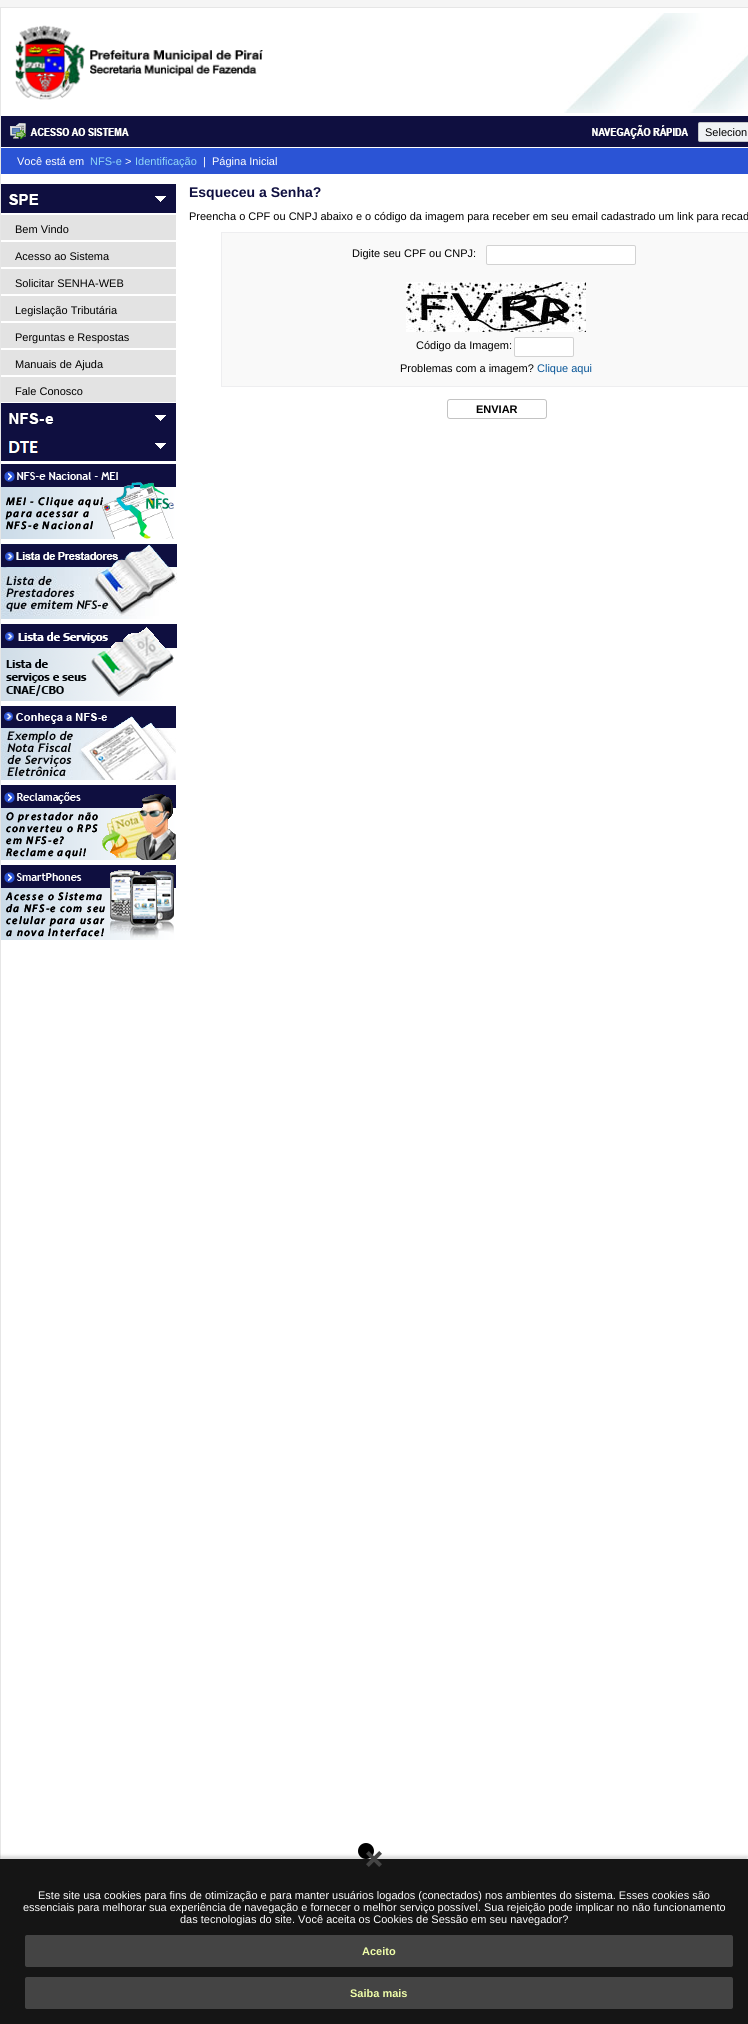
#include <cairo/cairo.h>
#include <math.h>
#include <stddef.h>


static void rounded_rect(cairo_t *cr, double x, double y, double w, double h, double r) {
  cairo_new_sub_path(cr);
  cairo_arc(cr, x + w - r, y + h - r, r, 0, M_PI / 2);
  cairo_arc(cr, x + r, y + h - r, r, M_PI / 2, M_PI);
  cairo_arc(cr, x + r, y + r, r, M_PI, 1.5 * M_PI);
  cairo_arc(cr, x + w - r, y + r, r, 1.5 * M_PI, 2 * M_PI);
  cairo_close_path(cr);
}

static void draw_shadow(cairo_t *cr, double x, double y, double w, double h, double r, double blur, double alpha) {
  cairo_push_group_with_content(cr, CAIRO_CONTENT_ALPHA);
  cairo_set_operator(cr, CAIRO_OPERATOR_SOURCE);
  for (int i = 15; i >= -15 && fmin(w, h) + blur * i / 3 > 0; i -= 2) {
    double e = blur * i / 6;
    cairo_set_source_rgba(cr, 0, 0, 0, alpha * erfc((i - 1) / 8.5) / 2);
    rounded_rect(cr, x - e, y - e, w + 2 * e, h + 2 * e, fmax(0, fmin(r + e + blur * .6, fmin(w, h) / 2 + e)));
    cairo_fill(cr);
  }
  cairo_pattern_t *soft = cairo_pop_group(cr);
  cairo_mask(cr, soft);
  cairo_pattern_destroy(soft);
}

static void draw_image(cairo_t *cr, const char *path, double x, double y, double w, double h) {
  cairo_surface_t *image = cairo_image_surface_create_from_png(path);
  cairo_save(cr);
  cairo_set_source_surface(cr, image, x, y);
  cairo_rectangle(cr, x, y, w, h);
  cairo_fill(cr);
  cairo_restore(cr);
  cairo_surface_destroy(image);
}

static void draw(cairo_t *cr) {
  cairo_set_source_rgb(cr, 245 / 255.0, 245 / 255.0, 245 / 255.0);
  cairo_paint(cr);
  cairo_set_source_rgb(cr, 1, 1, 1);
  cairo_rectangle(cr, 1, 8, 747, 1851);
  cairo_fill(cr);
  cairo_rectangle(cr, 0.5, 7.5, 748, 1987);
  cairo_set_source_rgb(cr, 230 / 255.0, 230 / 255.0, 230 / 255.0);
  cairo_set_line_width(cr, 1);
  cairo_stroke(cr);
  draw_image(cr, "images/1.png", 564, 13, 184, 100);
  draw_image(cr, "images/2.png", 15, 25, 248, 75);
  cairo_set_source_rgb(cr, 15 / 255.0, 15 / 255.0, 64 / 255.0);
  cairo_rectangle(cr, 1, 116, 747, 31);
  cairo_fill(cr);
  draw_image(cr, "images/3.png", 10, 123, 119, 16);
  draw_image(cr, "images/4.png", 592, 125, 96, 14);
  cairo_set_source_rgb(cr, 239 / 255.0, 242 / 255.0, 245 / 255.0);
  rounded_rect(cr, 698, 122, 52, 20, 2);
  cairo_fill(cr);
  rounded_rect(cr, 698.5, 122.5, 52, 19, 1.5);
  cairo_set_source_rgba(cr, 0, 0, 0, 0.18);
  cairo_stroke(cr);
  cairo_set_source_rgb(cr, 43 / 255.0, 84 / 255.0, 213 / 255.0);
  cairo_rectangle(cr, 1, 148, 747, 26);
  cairo_fill(cr);
  draw_image(cr, "images/5.png", 1, 184, 175, 29);
  cairo_set_source_rgb(cr, 227 / 255.0, 227 / 255.0, 227 / 255.0);
  cairo_rectangle(cr, 1, 215, 175, 187);
  cairo_fill(cr);
  cairo_set_source_rgb(cr, 1, 1, 1);
  cairo_rectangle(cr, 1, 240, 175, 2);
  cairo_fill(cr);
  cairo_rectangle(cr, 1, 267, 175, 2);
  cairo_fill(cr);
  cairo_rectangle(cr, 1, 294, 175, 2);
  cairo_fill(cr);
  cairo_rectangle(cr, 1, 321, 175, 2);
  cairo_fill(cr);
  cairo_rectangle(cr, 1, 348, 175, 2);
  cairo_fill(cr);
  cairo_rectangle(cr, 1, 375, 175, 2);
  cairo_fill(cr);
  draw_image(cr, "images/6.png", 1, 403, 175, 30);
  draw_image(cr, "images/7.png", 1, 433, 175, 28);
  draw_image(cr, "images/8.png", 1, 464, 175, 75);
  draw_image(cr, "images/9.png", 1, 544, 176, 75);
  draw_image(cr, "images/10.png", 1, 624, 176, 77);
  draw_image(cr, "images/11.png", 1, 706, 175, 74);
  draw_image(cr, "images/12.png", 1, 785, 175, 75);
  draw_image(cr, "images/13.png", 1, 865, 175, 75);
  cairo_rectangle(cr, 221.5, 232.5, 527, 154);
  cairo_set_source_rgb(cr, 238 / 255.0, 238 / 255.0, 240 / 255.0);
  cairo_stroke(cr);
  cairo_set_source_rgb(cr, 249 / 255.0, 249 / 255.0, 249 / 255.0);
  cairo_rectangle(cr, 222, 233, 526, 153);
  cairo_fill(cr);
  cairo_set_source_rgb(cr, 1, 1, 1);
  rounded_rect(cr, 486.5, 245.5, 149, 19, 1.5);
  cairo_fill_preserve(cr);
  cairo_set_source_rgb(cr, 210 / 255.0, 210 / 255.0, 210 / 255.0);
  cairo_stroke(cr);
  draw_image(cr, "images/14.png", 406, 282, 180, 50);
  cairo_set_source_rgb(cr, 1, 1, 1);
  rounded_rect(cr, 514.5, 337.5, 59, 19, 1.5);
  cairo_fill_preserve(cr);
  cairo_set_source_rgb(cr, 210 / 255.0, 210 / 255.0, 210 / 255.0);
  cairo_stroke(cr);
  rounded_rect(cr, 447.5, 399.5, 99, 19, 2.5);
  cairo_set_source_rgb(cr, 195 / 255.0, 195 / 255.0, 195 / 255.0);
  cairo_stroke(cr);
  cairo_set_source_rgb(cr, 0, 0, 0);
  draw_shadow(cr, 0, 1856, 748, 165, 0, 1.5, 0.15);
  cairo_set_source_rgb(cr, 21 / 255.0, 21 / 255.0, 21 / 255.0);
  cairo_rectangle(cr, 0, 1859, 748, 165);
  cairo_fill(cr);
  cairo_set_source_rgb(cr, 0, 0, 0);
  cairo_arc(cr, 366, 1851, 8, 0, 2 * M_PI);
  cairo_fill(cr);
  draw_image(cr, "images/15.png", 366, 1851, 16, 16);
  cairo_set_source_rgb(cr, 68 / 255.0, 68 / 255.0, 68 / 255.0);
  rounded_rect(cr, 25, 1935, 708, 32, 2);
  cairo_fill(cr);
  rounded_rect(cr, 25, 1977, 708, 32, 2);
  cairo_fill(cr);
  cairo_select_font_face(cr, "Liberation Sans", CAIRO_FONT_SLANT_NORMAL, CAIRO_FONT_WEIGHT_NORMAL);
  cairo_set_font_size(cr, 11);
  cairo_set_source_rgb(cr, 0, 0, 0);
  cairo_move_to(cr, 705, 136);
  cairo_show_text(cr, "Selecion");
  cairo_set_source_rgb(cr, 1, 1, 1);
  cairo_move_to(cr, 17, 165);
  cairo_show_text(cr, "Você está em");
  cairo_set_source_rgb(cr, 145 / 255.0, 216 / 255.0, 247 / 255.0);
  cairo_move_to(cr, 90, 165);
  cairo_show_text(cr, "NFS-e");
  cairo_set_source_rgb(cr, 1, 1, 1);
  cairo_move_to(cr, 125, 165);
  cairo_show_text(cr, ">");
  cairo_set_source_rgb(cr, 145 / 255.0, 216 / 255.0, 247 / 255.0);
  cairo_move_to(cr, 135, 165);
  cairo_show_text(cr, "Identificação");
  cairo_set_source_rgb(cr, 1, 1, 1);
  cairo_move_to(cr, 203, 165);
  cairo_show_text(cr, "|");
  cairo_move_to(cr, 212, 165);
  cairo_show_text(cr, "Página Inicial");
  cairo_set_source_rgb(cr, 0, 0, 0);
  cairo_move_to(cr, 15, 233);
  cairo_show_text(cr, "Bem Vindo");
  cairo_move_to(cr, 15, 260);
  cairo_show_text(cr, "Acesso ao Sistema");
  cairo_move_to(cr, 15, 287);
  cairo_show_text(cr, "Solicitar SENHA-WEB");
  cairo_move_to(cr, 15, 314);
  cairo_show_text(cr, "Legislação Tributária");
  cairo_move_to(cr, 15, 341);
  cairo_show_text(cr, "Perguntas e Respostas");
  cairo_move_to(cr, 15, 368);
  cairo_show_text(cr, "Manuais de Ajuda");
  cairo_move_to(cr, 15, 395);
  cairo_show_text(cr, "Fale Conosco");
  cairo_select_font_face(cr, "Liberation Sans", CAIRO_FONT_SLANT_NORMAL, CAIRO_FONT_WEIGHT_BOLD);
  cairo_set_font_size(cr, 14);
  cairo_set_source_rgb(cr, 15 / 255.0, 15 / 255.0, 64 / 255.0);
  cairo_move_to(cr, 189, 197);
  cairo_show_text(cr, "Esqueceu a Senha?");
  cairo_select_font_face(cr, "Liberation Sans", CAIRO_FONT_SLANT_NORMAL, CAIRO_FONT_WEIGHT_NORMAL);
  cairo_set_font_size(cr, 11);
  cairo_set_source_rgb(cr, 0, 0, 0);
  cairo_move_to(cr, 189, 220);
  cairo_show_text(cr, "Preencha o CPF ou CNPJ abaixo e o código da imagem para receber em seu email cadastrado um link para recad");
  cairo_move_to(cr, 352, 257);
  cairo_show_text(cr, "Digite seu CPF ou CNPJ:");
  cairo_move_to(cr, 416, 349);
  cairo_show_text(cr, "Código da Imagem:");
  cairo_move_to(cr, 400, 372);
  cairo_show_text(cr, "Problemas com a imagem?");
  cairo_set_source_rgb(cr, 7 / 255.0, 85 / 255.0, 151 / 255.0);
  cairo_move_to(cr, 537, 372);
  cairo_show_text(cr, "Clique aqui");
  cairo_select_font_face(cr, "Liberation Sans", CAIRO_FONT_SLANT_NORMAL, CAIRO_FONT_WEIGHT_BOLD);
  cairo_set_source_rgb(cr, 0, 0, 0);
  cairo_move_to(cr, 476, 413);
  cairo_show_text(cr, "ENVIAR");
  cairo_select_font_face(cr, "Liberation Sans", CAIRO_FONT_SLANT_NORMAL, CAIRO_FONT_WEIGHT_NORMAL);
  cairo_set_source_rgb(cr, 1, 1, 1);
  cairo_move_to(cr, 38, 1899);
  cairo_show_text(cr, "Este site usa cookies para fins de otimização e para manter usuários logados (conectados) nos ambientes do sistema. Esses cookies são");
  cairo_move_to(cr, 23, 1911);
  cairo_show_text(cr, "essenciais para melhorar sua experiência de navegação e fornecer o melhor serviço possível. Sua rejeição pode implicar no não funcionamento");
  cairo_move_to(cr, 180, 1923);
  cairo_show_text(cr, "das tecnologias do site. Você aceita os Cookies de Sessão em seu navegador?");
  cairo_select_font_face(cr, "Liberation Sans", CAIRO_FONT_SLANT_NORMAL, CAIRO_FONT_WEIGHT_BOLD);
  cairo_set_source_rgb(cr, 240 / 255.0, 1, 170 / 255.0);
  cairo_move_to(cr, 362, 1955);
  cairo_show_text(cr, "Aceito");
  cairo_move_to(cr, 350, 1997);
  cairo_show_text(cr, "Saiba mais");
}

int main(void) {
  cairo_surface_t *surface = cairo_image_surface_create(CAIRO_FORMAT_RGB24, 748, 2024);
  cairo_t *cr = cairo_create(surface);
  cairo_font_options_t *options = cairo_font_options_create();
  cairo_font_options_set_hint_metrics(options, CAIRO_HINT_METRICS_OFF);
  cairo_font_options_set_hint_style(options, CAIRO_HINT_STYLE_NONE);
  cairo_set_font_options(cr, options);
  cairo_set_miter_limit(cr, 4);
  draw(cr);
  cairo_surface_write_to_png(surface, "out.png");
  cairo_font_options_destroy(options);
  cairo_destroy(cr);
  cairo_surface_destroy(surface);
  return 0;
}
